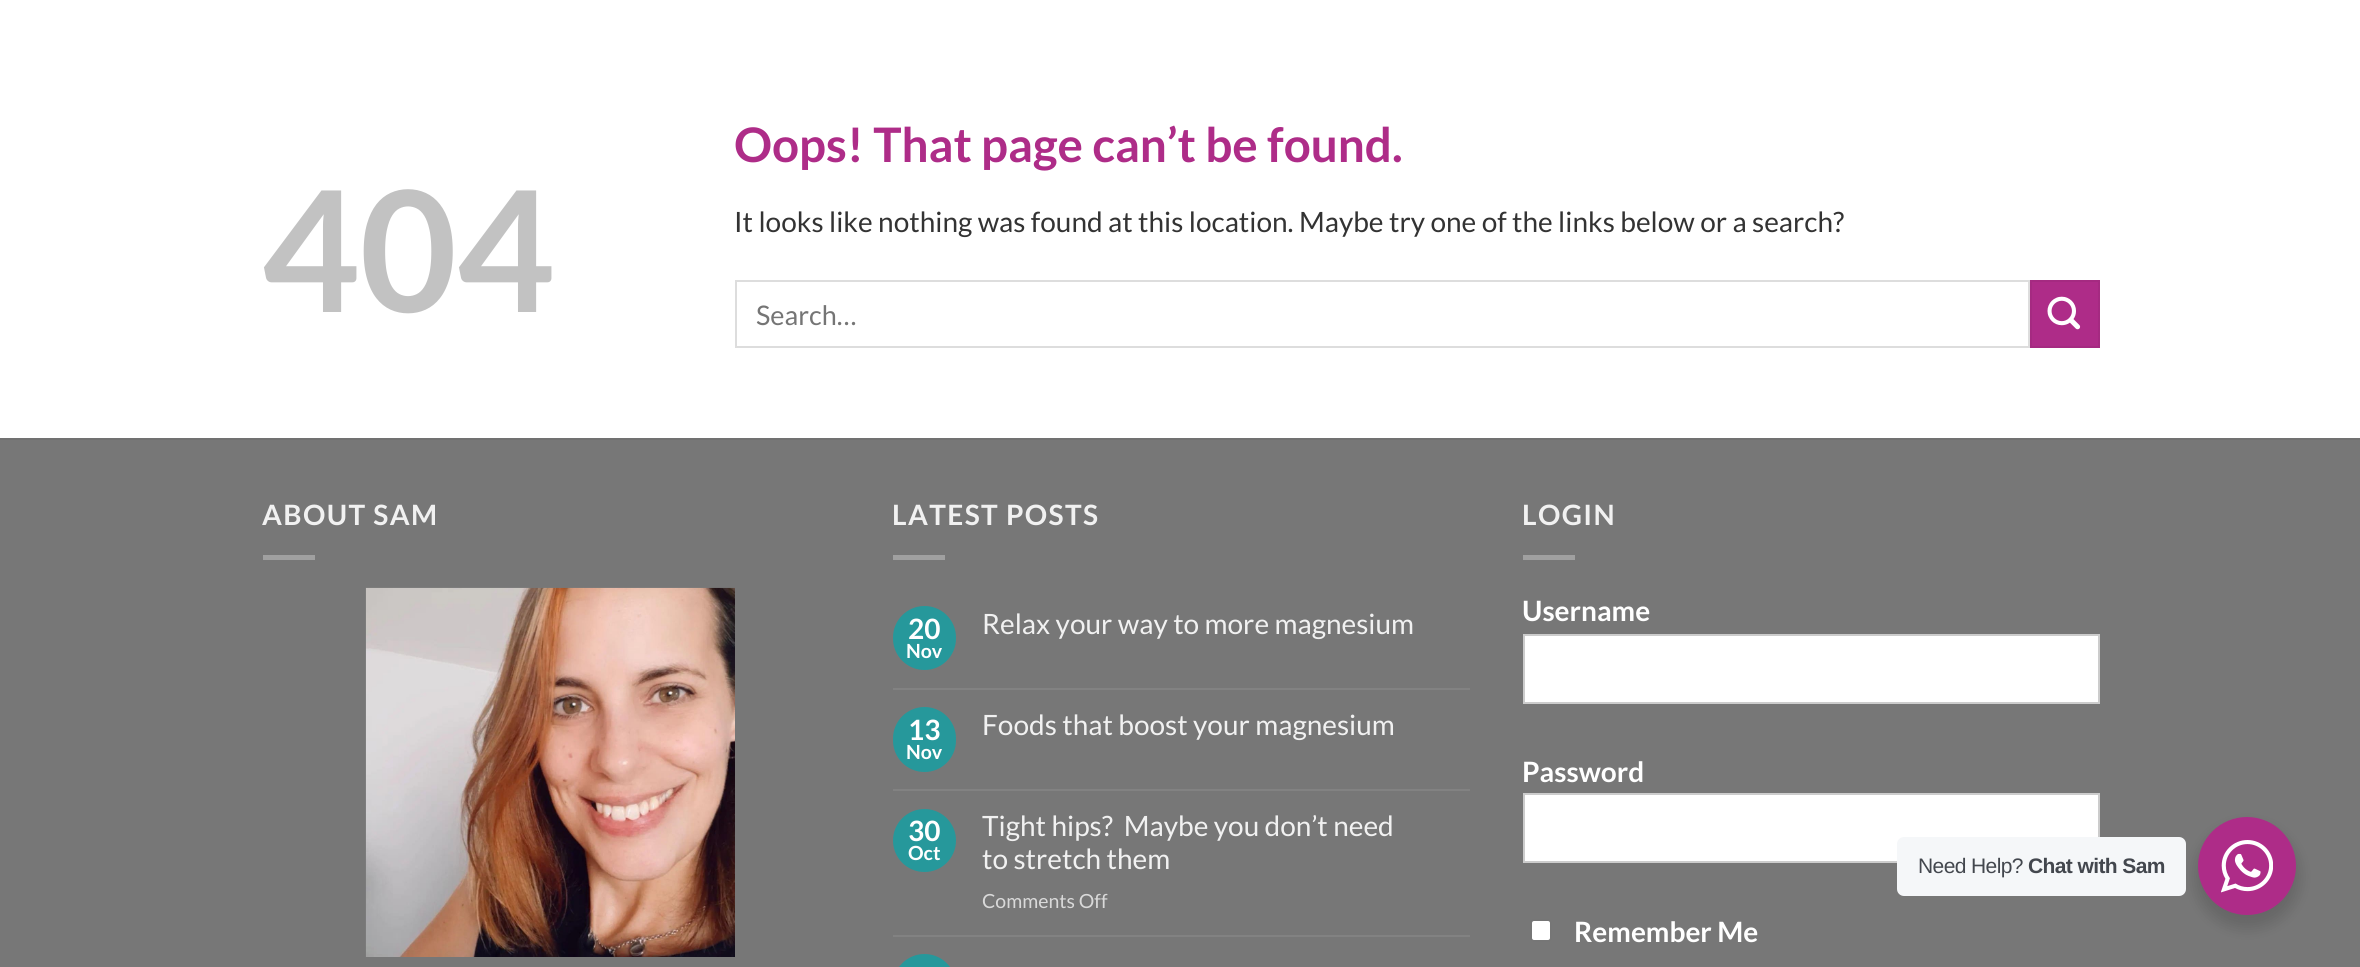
#include <cairo/cairo.h>
#include <math.h>
#include <stddef.h>


static void draw_spaced(cairo_t *cr, double x, double y, const char *s, double letter, double word) {
  cairo_move_to(cr, x, y);
  while (*s) {
    char ch[5] = {0};
    int n = 0;
    do ch[n++] = *s++; while ((*s & 0xC0) == 0x80);
    cairo_show_text(cr, ch);
    cairo_rel_move_to(cr, letter + word * (*ch == ' '), 0);
  }
}

static void rounded_rect(cairo_t *cr, double x, double y, double w, double h, double r) {
  cairo_new_sub_path(cr);
  cairo_arc(cr, x + w - r, y + h - r, r, 0, M_PI / 2);
  cairo_arc(cr, x + r, y + h - r, r, M_PI / 2, M_PI);
  cairo_arc(cr, x + r, y + r, r, M_PI, 1.5 * M_PI);
  cairo_arc(cr, x + w - r, y + r, r, 1.5 * M_PI, 2 * M_PI);
  cairo_close_path(cr);
}

static void draw_shadow(cairo_t *cr, double x, double y, double w, double h, double r, double blur, double alpha) {
  cairo_push_group_with_content(cr, CAIRO_CONTENT_ALPHA);
  cairo_set_operator(cr, CAIRO_OPERATOR_SOURCE);
  for (int i = 15; i >= -15 && fmin(w, h) + blur * i / 3 > 0; i -= 2) {
    double e = blur * i / 6;
    cairo_set_source_rgba(cr, 0, 0, 0, alpha * erfc((i - 1) / 8.5) / 2);
    rounded_rect(cr, x - e, y - e, w + 2 * e, h + 2 * e, fmax(0, fmin(r + e + blur * .6, fmin(w, h) / 2 + e)));
    cairo_fill(cr);
  }
  cairo_pattern_t *soft = cairo_pop_group(cr);
  cairo_mask(cr, soft);
  cairo_pattern_destroy(soft);
}

static void draw_image(cairo_t *cr, const char *path, double x, double y, double w, double h) {
  cairo_surface_t *image = cairo_image_surface_create_from_png(path);
  cairo_save(cr);
  cairo_set_source_surface(cr, image, x, y);
  cairo_rectangle(cr, x, y, w, h);
  cairo_fill(cr);
  cairo_restore(cr);
  cairo_surface_destroy(image);
}

static void draw(cairo_t *cr) {
  cairo_set_source_rgb(cr, 1, 1, 1);
  cairo_paint(cr);
  cairo_rectangle(cr, 736, 281, 1293, 66);
  cairo_set_source_rgb(cr, 221 / 255.0, 221 / 255.0, 221 / 255.0);
  cairo_stroke(cr);
  cairo_set_source_rgb(cr, 174 / 255.0, 44 / 255.0, 136 / 255.0);
  cairo_rectangle(cr, 2031, 281, 68, 66);
  cairo_fill_preserve(cr);
  cairo_set_source_rgb(cr, 165 / 255.0, 42 / 255.0, 129 / 255.0);
  cairo_stroke(cr);
  draw_image(cr, "images/1.png", 2047, 296, 34, 34);
  cairo_set_source_rgb(cr, 119 / 255.0, 119 / 255.0, 119 / 255.0);
  cairo_rectangle(cr, 0, 440, 2360, 527);
  cairo_fill(cr);
  cairo_set_source_rgb(cr, 113 / 255.0, 113 / 255.0, 113 / 255.0);
  cairo_rectangle(cr, 0, 438, 2360, 2);
  cairo_fill(cr);
  cairo_set_source_rgb(cr, 160 / 255.0, 160 / 255.0, 160 / 255.0);
  cairo_rectangle(cr, 263, 555, 52, 5);
  cairo_fill(cr);
  draw_image(cr, "images/2.png", 365, 587, 370, 370);
  cairo_rectangle(cr, 893, 555, 52, 5);
  cairo_fill(cr);
  cairo_set_source_rgb(cr, 38 / 255.0, 152 / 255.0, 155 / 255.0);
  rounded_rect(cr, 893, 606, 63, 64, 31.5);
  cairo_fill(cr);
  cairo_set_source_rgb(cr, 130 / 255.0, 130 / 255.0, 130 / 255.0);
  cairo_rectangle(cr, 893, 688, 577, 2);
  cairo_fill(cr);
  cairo_set_source_rgb(cr, 38 / 255.0, 152 / 255.0, 155 / 255.0);
  rounded_rect(cr, 893, 707, 63, 65, 31.5);
  cairo_fill(cr);
  cairo_set_source_rgb(cr, 130 / 255.0, 130 / 255.0, 130 / 255.0);
  cairo_rectangle(cr, 893, 789, 577, 2);
  cairo_fill(cr);
  cairo_set_source_rgb(cr, 38 / 255.0, 152 / 255.0, 155 / 255.0);
  cairo_arc(cr, 924.5, 840.5, 31.5, 0, 2 * M_PI);
  cairo_fill(cr);
  cairo_set_source_rgb(cr, 130 / 255.0, 130 / 255.0, 130 / 255.0);
  cairo_rectangle(cr, 893, 935, 577, 2);
  cairo_fill(cr);
  cairo_set_source_rgb(cr, 38 / 255.0, 152 / 255.0, 155 / 255.0);
  rounded_rect(cr, 893, 954, 63, 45, 31.5);
  cairo_fill(cr);
  cairo_set_source_rgb(cr, 160 / 255.0, 160 / 255.0, 160 / 255.0);
  cairo_rectangle(cr, 1523, 555, 52, 5);
  cairo_fill(cr);
  cairo_set_source_rgb(cr, 1, 1, 1);
  cairo_rectangle(cr, 1524, 635, 575, 68);
  cairo_fill_preserve(cr);
  cairo_set_source_rgb(cr, 204 / 255.0, 204 / 255.0, 204 / 255.0);
  cairo_stroke(cr);
  cairo_set_source_rgb(cr, 1, 1, 1);
  cairo_rectangle(cr, 1524, 794, 575, 68);
  cairo_fill_preserve(cr);
  cairo_set_source_rgb(cr, 204 / 255.0, 204 / 255.0, 204 / 255.0);
  cairo_stroke(cr);
  cairo_set_source_rgb(cr, 1, 1, 1);
  rounded_rect(cr, 1531, 920, 20, 21, 3);
  cairo_fill_preserve(cr);
  cairo_set_source_rgb(cr, 118 / 255.0, 118 / 255.0, 118 / 255.0);
  cairo_stroke(cr);
  cairo_set_source_rgb(cr, 0, 0, 0);
  draw_shadow(cr, 2195, 824, 105, 105, 52.5, 7, 0.14);
  cairo_set_source_rgb(cr, 245 / 255.0, 247 / 255.0, 249 / 255.0);
  rounded_rect(cr, 1897, 837, 289, 59, 7);
  cairo_fill(cr);
  cairo_set_source_rgb(cr, 174 / 255.0, 44 / 255.0, 136 / 255.0);
  cairo_arc(cr, 2247, 866, 49, 0, 2 * M_PI);
  cairo_fill(cr);
  draw_image(cr, "images/3.png", 2221, 840, 52, 53);
  cairo_select_font_face(cr, "Lato", CAIRO_FONT_SLANT_NORMAL, CAIRO_FONT_WEIGHT_BOLD);
  cairo_set_font_size(cr, 168);
  cairo_set_source_rgb(cr, 194 / 255.0, 194 / 255.0, 194 / 255.0);
  cairo_move_to(cr, 262, 312);
  cairo_show_text(cr, "404");
  cairo_set_font_size(cr, 47.6);
  cairo_set_source_rgb(cr, 174 / 255.0, 44 / 255.0, 136 / 255.0);
  cairo_move_to(cr, 734, 162);
  cairo_show_text(cr, "Oops! That page can’t be found.");
  cairo_select_font_face(cr, "Lato", CAIRO_FONT_SLANT_NORMAL, CAIRO_FONT_WEIGHT_NORMAL);
  cairo_set_font_size(cr, 28);
  cairo_set_source_rgb(cr, 51 / 255.0, 51 / 255.0, 51 / 255.0);
  cairo_move_to(cr, 734, 232);
  cairo_show_text(cr, "It looks like nothing was found at this location. Maybe try one of the links below or a search?");
  cairo_set_font_size(cr, 27);
  cairo_set_source_rgb(cr, 117 / 255.0, 117 / 255.0, 117 / 255.0);
  cairo_move_to(cr, 756, 325);
  cairo_show_text(cr, "Search…");
  cairo_select_font_face(cr, "Lato", CAIRO_FONT_SLANT_NORMAL, CAIRO_FONT_WEIGHT_BOLD);
  cairo_set_font_size(cr, 28);
  cairo_set_source_rgb(cr, 241 / 255.0, 241 / 255.0, 241 / 255.0);
  draw_spaced(cr, 262, 525, "ABOUT SAM", 1.4, 0);
  draw_spaced(cr, 892, 525, "LATEST POSTS", 1.4, 0);
  cairo_set_source_rgb(cr, 1, 1, 1);
  cairo_move_to(cr, 908, 639);
  cairo_show_text(cr, "20");
  cairo_set_font_size(cr, 19.5);
  cairo_move_to(cr, 906, 658);
  cairo_show_text(cr, "Nov");
  cairo_select_font_face(cr, "Lato", CAIRO_FONT_SLANT_NORMAL, CAIRO_FONT_WEIGHT_NORMAL);
  cairo_set_font_size(cr, 28);
  cairo_set_source_rgb(cr, 241 / 255.0, 241 / 255.0, 241 / 255.0);
  cairo_move_to(cr, 982, 634);
  cairo_show_text(cr, "Relax your way to more magnesium");
  cairo_select_font_face(cr, "Lato", CAIRO_FONT_SLANT_NORMAL, CAIRO_FONT_WEIGHT_BOLD);
  cairo_set_source_rgb(cr, 1, 1, 1);
  cairo_move_to(cr, 908, 740);
  cairo_show_text(cr, "13");
  cairo_set_font_size(cr, 19.5);
  cairo_move_to(cr, 906, 759);
  cairo_show_text(cr, "Nov");
  cairo_select_font_face(cr, "Lato", CAIRO_FONT_SLANT_NORMAL, CAIRO_FONT_WEIGHT_NORMAL);
  cairo_set_font_size(cr, 28);
  cairo_set_source_rgb(cr, 241 / 255.0, 241 / 255.0, 241 / 255.0);
  cairo_move_to(cr, 982, 735);
  cairo_show_text(cr, "Foods that boost your magnesium");
  cairo_select_font_face(cr, "Lato", CAIRO_FONT_SLANT_NORMAL, CAIRO_FONT_WEIGHT_BOLD);
  cairo_set_source_rgb(cr, 1, 1, 1);
  cairo_move_to(cr, 908, 841);
  cairo_show_text(cr, "30");
  cairo_set_font_size(cr, 19.5);
  cairo_move_to(cr, 908, 860);
  cairo_show_text(cr, "Oct");
  cairo_select_font_face(cr, "Lato", CAIRO_FONT_SLANT_NORMAL, CAIRO_FONT_WEIGHT_NORMAL);
  cairo_set_font_size(cr, 28);
  cairo_set_source_rgb(cr, 241 / 255.0, 241 / 255.0, 241 / 255.0);
  cairo_move_to(cr, 982, 836);
  cairo_show_text(cr, "Tight hips?  Maybe you don’t need");
  cairo_move_to(cr, 982, 869);
  cairo_show_text(cr, "to stretch them");
  cairo_set_font_size(cr, 19.5);
  cairo_set_source_rgb(cr, 217 / 255.0, 217 / 255.0, 217 / 255.0);
  cairo_move_to(cr, 982, 908);
  cairo_show_text(cr, "Comments Off");
  cairo_select_font_face(cr, "Lato", CAIRO_FONT_SLANT_NORMAL, CAIRO_FONT_WEIGHT_BOLD);
  cairo_set_font_size(cr, 28);
  cairo_set_source_rgb(cr, 241 / 255.0, 241 / 255.0, 241 / 255.0);
  draw_spaced(cr, 1522, 525, "LOGIN", 1.4, 0);
  cairo_set_source_rgb(cr, 1, 1, 1);
  cairo_move_to(cr, 1522, 621);
  cairo_show_text(cr, "Username");
  cairo_move_to(cr, 1522, 782);
  cairo_show_text(cr, "Password");
  cairo_move_to(cr, 1574, 942);
  cairo_show_text(cr, "Remember Me");
  cairo_select_font_face(cr, "Liberation Sans", CAIRO_FONT_SLANT_NORMAL, CAIRO_FONT_WEIGHT_NORMAL);
  cairo_set_font_size(cr, 21);
  cairo_set_source_rgb(cr, 67 / 255.0, 71 / 255.0, 78 / 255.0);
  draw_spaced(cr, 1918, 873, "Need Help?", -0.6, 0);
  cairo_select_font_face(cr, "Liberation Sans", CAIRO_FONT_SLANT_NORMAL, CAIRO_FONT_WEIGHT_BOLD);
  draw_spaced(cr, 2028, 873, "Chat with Sam", -0.6, 0);
}

int main(void) {
  cairo_surface_t *surface = cairo_image_surface_create(CAIRO_FORMAT_RGB24, 2360, 967);
  cairo_t *cr = cairo_create(surface);
  cairo_font_options_t *options = cairo_font_options_create();
  cairo_font_options_set_hint_metrics(options, CAIRO_HINT_METRICS_OFF);
  cairo_font_options_set_hint_style(options, CAIRO_HINT_STYLE_NONE);
  cairo_set_font_options(cr, options);
  cairo_set_miter_limit(cr, 4);
  draw(cr);
  cairo_surface_write_to_png(surface, "out.png");
  cairo_font_options_destroy(options);
  cairo_destroy(cr);
  cairo_surface_destroy(surface);
  return 0;
}
